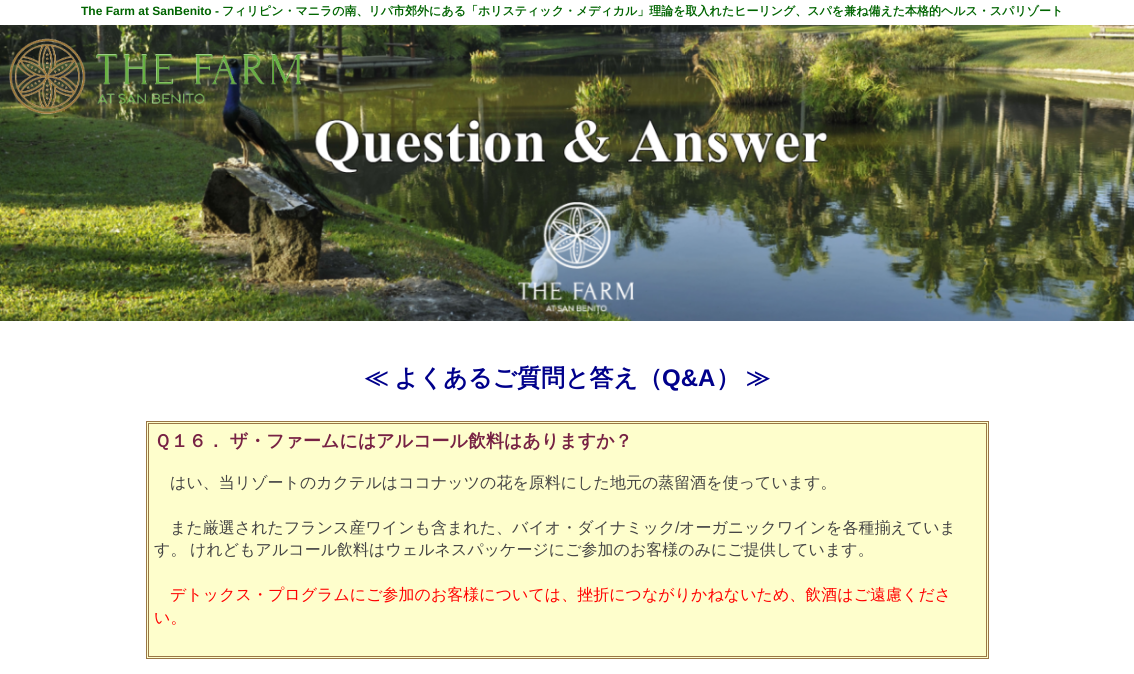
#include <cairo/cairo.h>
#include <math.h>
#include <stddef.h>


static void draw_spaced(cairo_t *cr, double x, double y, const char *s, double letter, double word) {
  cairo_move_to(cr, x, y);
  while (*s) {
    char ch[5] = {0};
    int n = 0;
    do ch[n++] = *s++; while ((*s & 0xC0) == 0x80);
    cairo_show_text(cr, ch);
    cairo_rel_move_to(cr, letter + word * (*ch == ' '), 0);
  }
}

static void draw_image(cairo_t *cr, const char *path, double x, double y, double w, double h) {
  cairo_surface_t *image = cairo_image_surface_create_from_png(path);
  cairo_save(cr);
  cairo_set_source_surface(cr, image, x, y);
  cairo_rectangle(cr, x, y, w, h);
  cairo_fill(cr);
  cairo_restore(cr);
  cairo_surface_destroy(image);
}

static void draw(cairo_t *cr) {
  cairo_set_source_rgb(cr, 1, 1, 1);
  cairo_paint(cr);
  draw_image(cr, "images/2.png", 0, 25, 1134, 296);
  draw_image(cr, "images/1.png", 9, 38, 292, 77);
  cairo_set_source_rgb(cr, 254 / 255.0, 254 / 255.0, 204 / 255.0);
  cairo_rectangle(cr, 146.5, 421.5, 842, 237);
  cairo_fill_preserve(cr);
  cairo_set_source_rgb(cr, 153 / 255.0, 118 / 255.0, 69 / 255.0);
  cairo_set_line_width(cr, 1);
  cairo_stroke(cr);
  cairo_rectangle(cr, 148.5, 423.5, 838, 233);
  cairo_stroke(cr);
  cairo_select_font_face(cr, "Liberation Sans", CAIRO_FONT_SLANT_NORMAL, CAIRO_FONT_WEIGHT_BOLD);
  cairo_set_font_size(cr, 12);
  cairo_set_source_rgb(cr, 0, 100 / 255.0, 0);
  cairo_move_to(cr, 81, 15);
  cairo_show_text(cr, "The Farm at SanBenito -");
  cairo_select_font_face(cr, "WenQuanYi Zen Hei", CAIRO_FONT_SLANT_NORMAL, CAIRO_FONT_WEIGHT_BOLD);
  cairo_move_to(cr, 222, 15);
  cairo_show_text(cr, "フィリピン・マニラの南、リパ市郊外にある「ホリスティック・メディカル」理論を取入れたヒーリング、スパを兼ね備えた本格的ヘルス・スパリゾート");
  cairo_set_font_size(cr, 24);
  cairo_set_source_rgb(cr, 0, 0, 139 / 255.0);
  draw_spaced(cr, 364, 386, "≪ よくあるご質問と答え（", 0, -1);
  cairo_select_font_face(cr, "Liberation Sans", CAIRO_FONT_SLANT_NORMAL, CAIRO_FONT_WEIGHT_BOLD);
  cairo_move_to(cr, 662, 386);
  cairo_show_text(cr, "Q&A");
  cairo_select_font_face(cr, "WenQuanYi Zen Hei", CAIRO_FONT_SLANT_NORMAL, CAIRO_FONT_WEIGHT_BOLD);
  cairo_move_to(cr, 716, 386);
  cairo_show_text(cr, "）");
  cairo_move_to(cr, 746, 386);
  cairo_show_text(cr, "≫");
  cairo_set_font_size(cr, 18);
  cairo_set_source_rgb(cr, 119 / 255.0, 34 / 255.0, 68 / 255.0);
  cairo_move_to(cr, 154, 447);
  cairo_show_text(cr, "Ｑ１６． ザ・ファームにはアルコール飲料はありますか？");
  cairo_select_font_face(cr, "WenQuanYi Zen Hei Medium", CAIRO_FONT_SLANT_NORMAL, CAIRO_FONT_WEIGHT_NORMAL);
  cairo_set_font_size(cr, 16);
  cairo_set_source_rgb(cr, 68 / 255.0, 68 / 255.0, 68 / 255.0);
  cairo_move_to(cr, 170, 488);
  cairo_show_text(cr, "はい、当リゾートのカクテルはココナッツの花を原料にした地元の蒸留酒を使っています。");
  cairo_move_to(cr, 170, 533);
  cairo_show_text(cr, "また厳選されたフランス産ワインも含まれた、バイオ・ダイナミック");
  cairo_select_font_face(cr, "Liberation Sans", CAIRO_FONT_SLANT_NORMAL, CAIRO_FONT_WEIGHT_NORMAL);
  cairo_move_to(cr, 675, 533);
  cairo_show_text(cr, "/");
  cairo_select_font_face(cr, "WenQuanYi Zen Hei Medium", CAIRO_FONT_SLANT_NORMAL, CAIRO_FONT_WEIGHT_NORMAL);
  cairo_move_to(cr, 679, 533);
  cairo_show_text(cr, "オーガニックワインを各種揃えていま");
  cairo_move_to(cr, 154, 555);
  cairo_show_text(cr, "す。");
  cairo_move_to(cr, 190, 555);
  cairo_show_text(cr, "けれどもアルコール飲料はウェルネスパッケージにご参加のお客様のみにご提供しています。");
  cairo_set_source_rgb(cr, 1, 0, 0);
  cairo_move_to(cr, 170, 600);
  cairo_show_text(cr, "デトックス・プログラムにご参加のお客様については、挫折につながりかねないため、飲酒はご遠慮くださ");
  cairo_move_to(cr, 154, 623);
  cairo_show_text(cr, "い。");
}

int main(void) {
  cairo_surface_t *surface = cairo_image_surface_create(CAIRO_FORMAT_RGB24, 1134, 674);
  cairo_t *cr = cairo_create(surface);
  cairo_font_options_t *options = cairo_font_options_create();
  cairo_font_options_set_hint_metrics(options, CAIRO_HINT_METRICS_OFF);
  cairo_font_options_set_hint_style(options, CAIRO_HINT_STYLE_NONE);
  cairo_set_font_options(cr, options);
  cairo_set_miter_limit(cr, 4);
  draw(cr);
  cairo_surface_write_to_png(surface, "out.png");
  cairo_font_options_destroy(options);
  cairo_destroy(cr);
  cairo_surface_destroy(surface);
  return 0;
}
